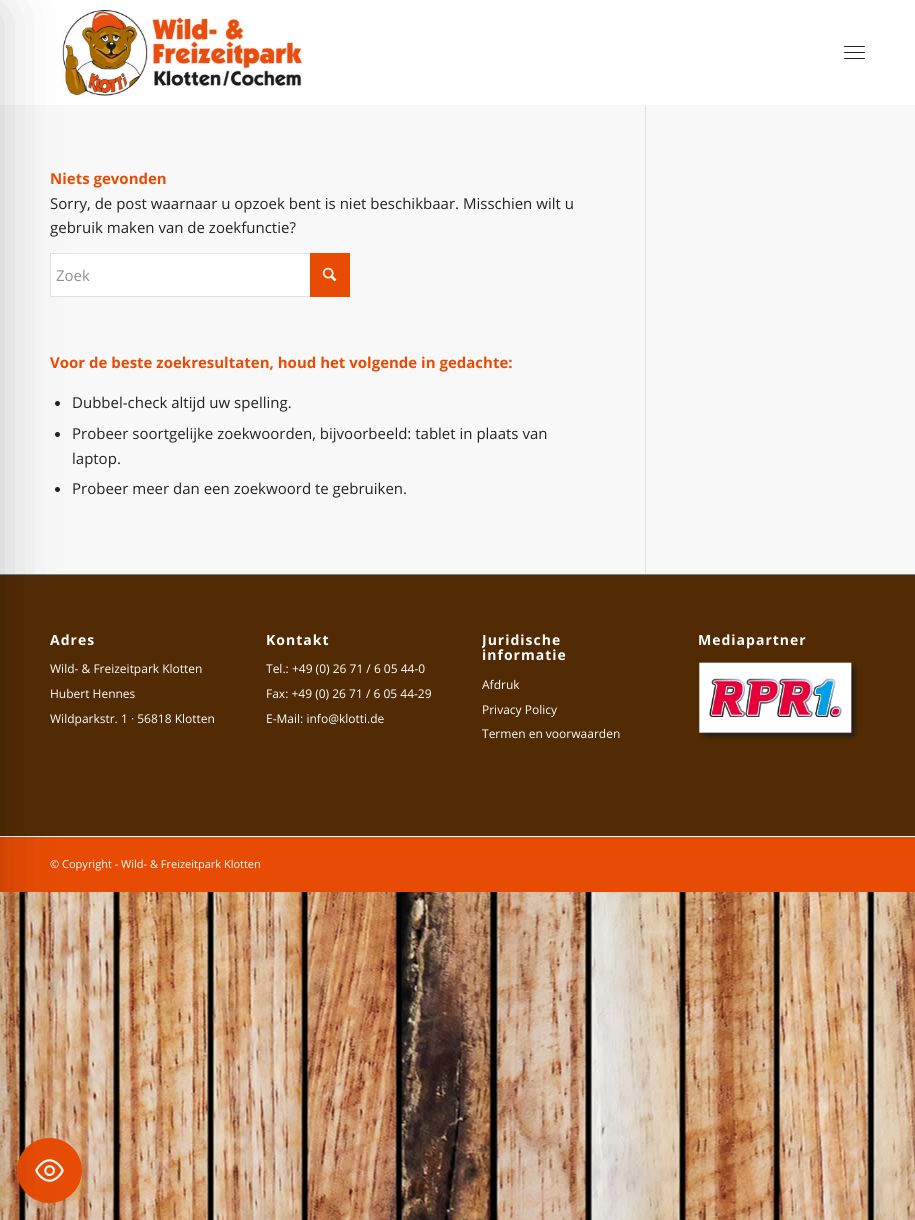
#include <cairo/cairo.h>
#include <math.h>
#include <stddef.h>


static void draw_spaced(cairo_t *cr, double x, double y, const char *s, double letter, double word) {
  cairo_move_to(cr, x, y);
  while (*s) {
    char ch[5] = {0};
    int n = 0;
    do ch[n++] = *s++; while ((*s & 0xC0) == 0x80);
    cairo_show_text(cr, ch);
    cairo_rel_move_to(cr, letter + word * (*ch == ' '), 0);
  }
}

static void rounded_rect(cairo_t *cr, double x, double y, double w, double h, double r) {
  cairo_new_sub_path(cr);
  cairo_arc(cr, x + w - r, y + h - r, r, 0, M_PI / 2);
  cairo_arc(cr, x + r, y + h - r, r, M_PI / 2, M_PI);
  cairo_arc(cr, x + r, y + r, r, M_PI, 1.5 * M_PI);
  cairo_arc(cr, x + w - r, y + r, r, 1.5 * M_PI, 2 * M_PI);
  cairo_close_path(cr);
}

static void draw_shadow(cairo_t *cr, double x, double y, double w, double h, double r, double blur, double alpha) {
  cairo_push_group_with_content(cr, CAIRO_CONTENT_ALPHA);
  cairo_set_operator(cr, CAIRO_OPERATOR_SOURCE);
  for (int i = 15; i >= -15 && fmin(w, h) + blur * i / 3 > 0; i -= 2) {
    double e = blur * i / 6;
    cairo_set_source_rgba(cr, 0, 0, 0, alpha * erfc((i - 1) / 8.5) / 2);
    rounded_rect(cr, x - e, y - e, w + 2 * e, h + 2 * e, fmax(0, fmin(r + e + blur * .6, fmin(w, h) / 2 + e)));
    cairo_fill(cr);
  }
  cairo_pattern_t *soft = cairo_pop_group(cr);
  cairo_mask(cr, soft);
  cairo_pattern_destroy(soft);
}

static void draw_image(cairo_t *cr, const char *path, double x, double y, double w, double h) {
  cairo_surface_t *image = cairo_image_surface_create_from_png(path);
  cairo_save(cr);
  cairo_set_source_surface(cr, image, x, y);
  cairo_rectangle(cr, x, y, w, h);
  cairo_fill(cr);
  cairo_restore(cr);
  cairo_surface_destroy(image);
}

static void draw(cairo_t *cr) {
  cairo_set_source_rgb(cr, 1, 1, 1);
  cairo_paint(cr);
  draw_image(cr, "images/1.png", 0, 892, 915, 328);
  draw_image(cr, "images/2.png", 61, 6, 242, 91);
  cairo_set_source_rgb(cr, 248 / 255.0, 248 / 255.0, 248 / 255.0);
  cairo_rectangle(cr, 0, 105, 915, 469);
  cairo_fill(cr);
  cairo_set_source_rgb(cr, 1, 1, 1);
  cairo_rectangle(cr, 51, 254, 259, 42);
  cairo_fill(cr);
  cairo_rectangle(cr, 50.5, 253.5, 299, 43);
  cairo_set_source_rgb(cr, 225 / 255.0, 225 / 255.0, 225 / 255.0);
  cairo_set_line_width(cr, 1);
  cairo_stroke(cr);
  cairo_set_source_rgb(cr, 34 / 255.0, 34 / 255.0, 34 / 255.0);
  cairo_arc(cr, 57.5, 403.5, 2.5, 0, 2 * M_PI);
  cairo_fill(cr);
  cairo_arc(cr, 57.5, 434.5, 2.5, 0, 2 * M_PI);
  cairo_fill(cr);
  cairo_arc(cr, 57.5, 489.5, 2.5, 0, 2 * M_PI);
  cairo_fill(cr);
  cairo_set_source_rgb(cr, 82 / 255.0, 43 / 255.0, 4 / 255.0);
  cairo_rectangle(cr, 0, 575, 915, 261);
  cairo_fill(cr);
  cairo_set_source_rgb(cr, 103 / 255.0, 134 / 255.0, 161 / 255.0);
  cairo_rectangle(cr, 0, 574, 915, 1);
  cairo_fill(cr);
  cairo_set_source_rgb(cr, 232 / 255.0, 76 / 255.0, 4 / 255.0);
  cairo_rectangle(cr, 0, 837, 915, 55);
  cairo_fill(cr);
  cairo_arc(cr, 49.5, 1170.5, 32.5, 0, 2 * M_PI);
  cairo_fill(cr);
  draw_image(cr, "images/5.png", 35, 1159, 29, 23);
  cairo_set_source_rgb(cr, 0, 0, 0);
  draw_shadow(cr, -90, 10, 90, 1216, 0, 30, 0.2);
  cairo_set_source_rgb(cr, 34 / 255.0, 34 / 255.0, 34 / 255.0);
  rounded_rect(cr, 844, 52, 21, 1, 0.5);
  cairo_fill(cr);
  rounded_rect(cr, 844, 46, 21, 1, 0.5);
  cairo_fill(cr);
  rounded_rect(cr, 844, 58, 21, 1, 0.5);
  cairo_fill(cr);
  cairo_set_source_rgb(cr, 225 / 255.0, 225 / 255.0, 225 / 255.0);
  cairo_rectangle(cr, 645, 103, 1, 471);
  cairo_fill(cr);
  cairo_set_source_rgb(cr, 1, 1, 1);
  cairo_rectangle(cr, 645, 103, 1, 2);
  cairo_fill(cr);
  cairo_set_source_rgb(cr, 232 / 255.0, 76 / 255.0, 4 / 255.0);
  cairo_rectangle(cr, 310, 253, 40, 44);
  cairo_fill(cr);
  draw_image(cr, "images/3.png", 322, 267, 15, 15);
  draw_image(cr, "images/4.png", 699, 662, 159, 78);
  cairo_select_font_face(cr, "Open Sans", CAIRO_FONT_SLANT_NORMAL, CAIRO_FONT_WEIGHT_BOLD);
  cairo_set_font_size(cr, 15);
  cairo_move_to(cr, 50, 184);
  cairo_show_text(cr, "Niets gevonden");
  cairo_select_font_face(cr, "Open Sans", CAIRO_FONT_SLANT_NORMAL, CAIRO_FONT_WEIGHT_NORMAL);
  cairo_set_source_rgb(cr, 34 / 255.0, 34 / 255.0, 34 / 255.0);
  cairo_move_to(cr, 50, 209);
  cairo_show_text(cr, "Sorry, de post waarnaar u opzoek bent is niet beschikbaar. Misschien wilt u");
  cairo_move_to(cr, 50, 233);
  cairo_show_text(cr, "gebruik maken van de zoekfunctie?");
  cairo_set_source_rgb(cr, 145 / 255.0, 145 / 255.0, 145 / 255.0);
  cairo_move_to(cr, 56, 281);
  cairo_show_text(cr, "Zoek");
  cairo_select_font_face(cr, "Open Sans", CAIRO_FONT_SLANT_NORMAL, CAIRO_FONT_WEIGHT_BOLD);
  cairo_set_source_rgb(cr, 232 / 255.0, 76 / 255.0, 4 / 255.0);
  cairo_move_to(cr, 50, 368);
  cairo_show_text(cr, "Voor de beste zoekresultaten, houd het volgende in gedachte:");
  cairo_select_font_face(cr, "Open Sans", CAIRO_FONT_SLANT_NORMAL, CAIRO_FONT_WEIGHT_NORMAL);
  cairo_set_source_rgb(cr, 34 / 255.0, 34 / 255.0, 34 / 255.0);
  cairo_move_to(cr, 72, 408);
  cairo_show_text(cr, "Dubbel-check altijd uw spelling.");
  cairo_move_to(cr, 72, 439);
  cairo_show_text(cr, "Probeer soortgelijke zoekwoorden, bijvoorbeeld: tablet in plaats van");
  cairo_move_to(cr, 72, 464);
  cairo_show_text(cr, "laptop.");
  cairo_move_to(cr, 72, 494);
  cairo_show_text(cr, "Probeer meer dan een zoekwoord te gebruiken.");
  cairo_select_font_face(cr, "Open Sans", CAIRO_FONT_SLANT_NORMAL, CAIRO_FONT_WEIGHT_BOLD);
  cairo_set_font_size(cr, 14);
  cairo_set_source_rgb(cr, 1, 1, 1);
  draw_spaced(cr, 50, 645, "Adres", 1, 0);
  cairo_select_font_face(cr, "Open Sans", CAIRO_FONT_SLANT_NORMAL, CAIRO_FONT_WEIGHT_NORMAL);
  cairo_set_font_size(cr, 12);
  cairo_move_to(cr, 50, 673);
  cairo_show_text(cr, "Wild- & Freizeitpark Klotten");
  cairo_move_to(cr, 50, 698);
  cairo_show_text(cr, "Hubert Hennes");
  cairo_move_to(cr, 50, 723);
  cairo_show_text(cr, "Wildparkstr. 1 · 56818 Klotten");
  cairo_select_font_face(cr, "Open Sans", CAIRO_FONT_SLANT_NORMAL, CAIRO_FONT_WEIGHT_BOLD);
  cairo_set_font_size(cr, 14);
  draw_spaced(cr, 266, 645, "Kontakt", 1, 0);
  cairo_select_font_face(cr, "Open Sans", CAIRO_FONT_SLANT_NORMAL, CAIRO_FONT_WEIGHT_NORMAL);
  cairo_set_font_size(cr, 12);
  cairo_move_to(cr, 266, 673);
  cairo_show_text(cr, "Tel.: +49 (0) 26 71 / 6 05 44-0");
  cairo_move_to(cr, 266, 698);
  cairo_show_text(cr, "Fax: +49 (0) 26 71 / 6 05 44-29");
  cairo_move_to(cr, 266, 723);
  cairo_show_text(cr, "E-Mail: info@klotti.de");
  cairo_save(cr);
  cairo_rectangle(cr, 482, 620, 167, 137);
  cairo_clip(cr);
  cairo_select_font_face(cr, "Open Sans", CAIRO_FONT_SLANT_NORMAL, CAIRO_FONT_WEIGHT_BOLD);
  cairo_set_font_size(cr, 14);
  draw_spaced(cr, 482, 645, "Juridische", 1, 0);
  cairo_restore(cr);
  cairo_select_font_face(cr, "Open Sans", CAIRO_FONT_SLANT_NORMAL, CAIRO_FONT_WEIGHT_BOLD);
  cairo_set_font_size(cr, 14);
  draw_spaced(cr, 482, 660, "informatie", 1, 0);
  cairo_select_font_face(cr, "Open Sans", CAIRO_FONT_SLANT_NORMAL, CAIRO_FONT_WEIGHT_NORMAL);
  cairo_set_font_size(cr, 12);
  cairo_move_to(cr, 482, 689);
  cairo_show_text(cr, "Afdruk");
  cairo_move_to(cr, 482, 714);
  cairo_show_text(cr, "Privacy Policy");
  cairo_move_to(cr, 482, 738);
  cairo_show_text(cr, "Termen en voorwaarden");
  cairo_select_font_face(cr, "Open Sans", CAIRO_FONT_SLANT_NORMAL, CAIRO_FONT_WEIGHT_BOLD);
  cairo_set_font_size(cr, 14);
  draw_spaced(cr, 698, 645, "Mediapartner", 1, 0);
  cairo_select_font_face(cr, "Open Sans", CAIRO_FONT_SLANT_NORMAL, CAIRO_FONT_WEIGHT_NORMAL);
  cairo_set_font_size(cr, 11);
  cairo_move_to(cr, 50, 868);
  cairo_show_text(cr, "© Copyright - Wild- & Freizeitpark Klotten");
}

int main(void) {
  cairo_surface_t *surface = cairo_image_surface_create(CAIRO_FORMAT_RGB24, 915, 1220);
  cairo_t *cr = cairo_create(surface);
  cairo_font_options_t *options = cairo_font_options_create();
  cairo_font_options_set_hint_metrics(options, CAIRO_HINT_METRICS_OFF);
  cairo_font_options_set_hint_style(options, CAIRO_HINT_STYLE_NONE);
  cairo_set_font_options(cr, options);
  cairo_set_miter_limit(cr, 4);
  draw(cr);
  cairo_surface_write_to_png(surface, "out.png");
  cairo_font_options_destroy(options);
  cairo_destroy(cr);
  cairo_surface_destroy(surface);
  return 0;
}
